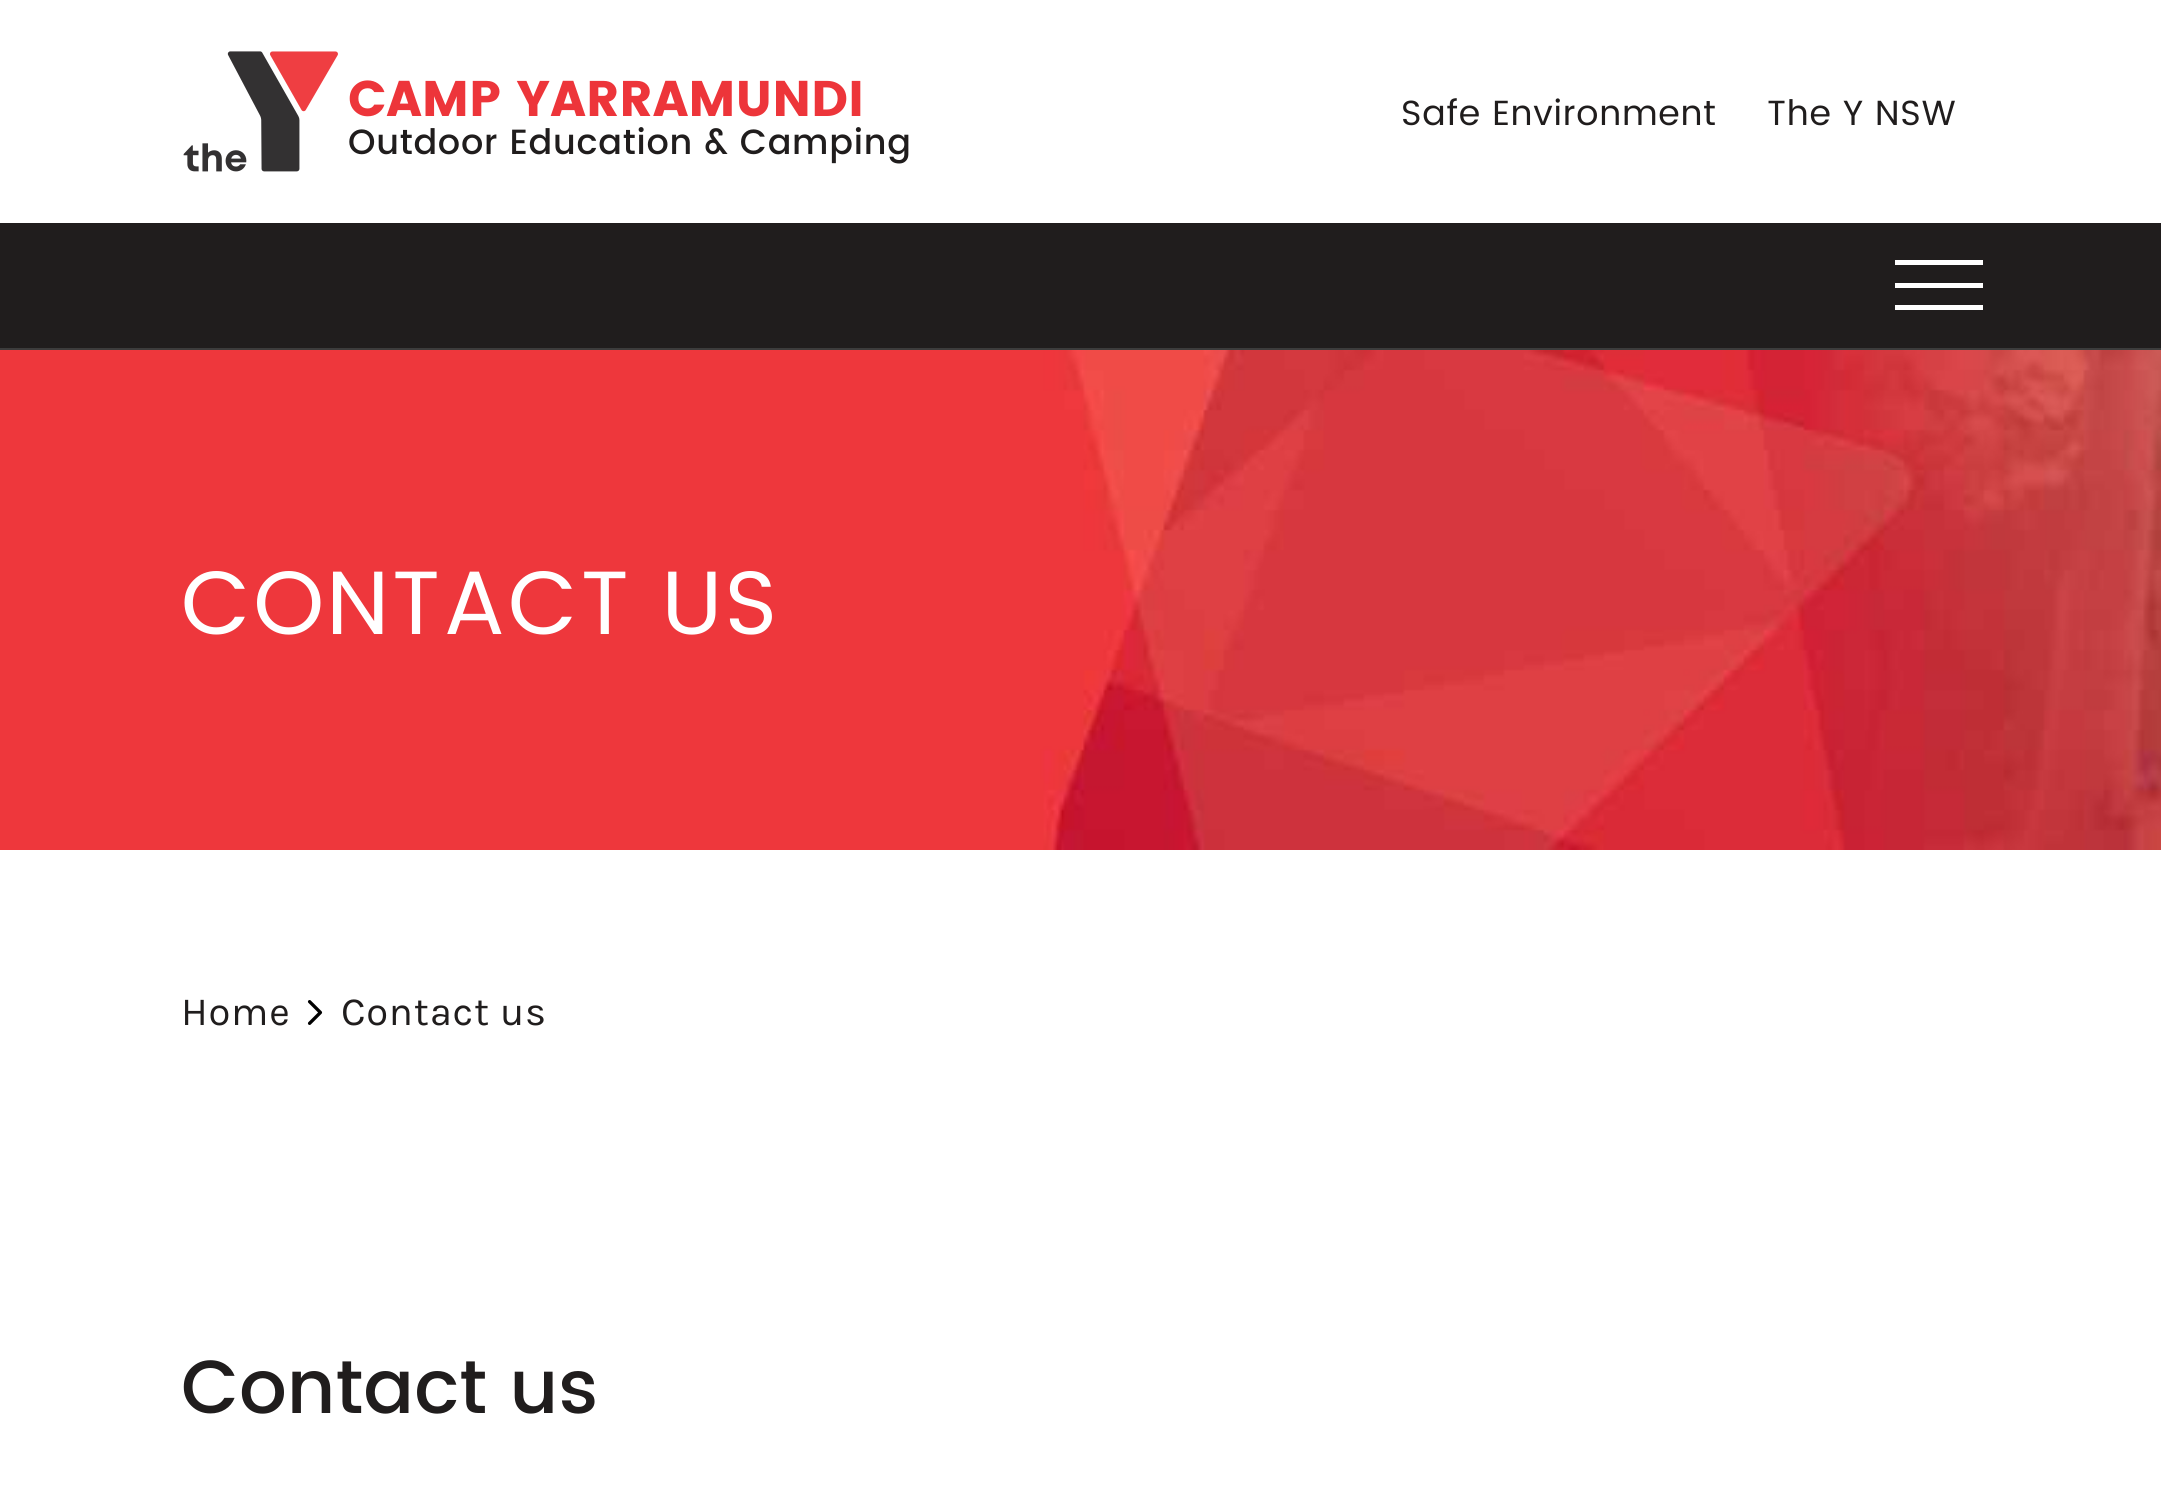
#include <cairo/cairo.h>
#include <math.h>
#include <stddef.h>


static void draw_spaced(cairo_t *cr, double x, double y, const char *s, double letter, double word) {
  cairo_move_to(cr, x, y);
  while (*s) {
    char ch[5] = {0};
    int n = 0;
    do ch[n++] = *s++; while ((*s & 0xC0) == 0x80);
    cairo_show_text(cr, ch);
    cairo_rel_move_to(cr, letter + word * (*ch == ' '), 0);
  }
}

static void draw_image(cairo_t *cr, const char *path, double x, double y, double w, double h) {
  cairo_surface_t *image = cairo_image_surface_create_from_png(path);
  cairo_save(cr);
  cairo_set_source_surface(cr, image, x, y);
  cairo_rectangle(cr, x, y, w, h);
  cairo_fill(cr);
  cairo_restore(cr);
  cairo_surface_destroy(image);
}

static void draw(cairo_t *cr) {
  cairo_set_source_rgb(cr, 1, 1, 1);
  cairo_paint(cr);
  draw_image(cr, "images/1.png", 183, 51, 155, 121);
  cairo_set_source_rgb(cr, 32 / 255.0, 29 / 255.0, 29 / 255.0);
  cairo_rectangle(cr, 0, 223, 2161, 125);
  cairo_fill(cr);
  cairo_set_source_rgb(cr, 60 / 255.0, 60 / 255.0, 60 / 255.0);
  cairo_rectangle(cr, 0, 348, 2161, 2);
  cairo_fill(cr);
  cairo_set_source_rgb(cr, 1, 1, 1);
  cairo_rectangle(cr, 1895, 260, 88, 5);
  cairo_fill(cr);
  cairo_rectangle(cr, 1895, 283, 88, 5);
  cairo_fill(cr);
  cairo_rectangle(cr, 1895, 305, 88, 5);
  cairo_fill(cr);
  draw_image(cr, "images/2.png", 0, 350, 2161, 500);
  draw_image(cr, "images/3.png", 307, 1000, 16, 25);
  cairo_select_font_face(cr, "Poppins", CAIRO_FONT_SLANT_NORMAL, CAIRO_FONT_WEIGHT_BOLD);
  cairo_set_font_size(cr, 50);
  cairo_set_source_rgb(cr, 237 / 255.0, 53 / 255.0, 58 / 255.0);
  cairo_move_to(cr, 348, 116);
  cairo_show_text(cr, "CAMP YARRAMUNDI");
  cairo_select_font_face(cr, "Poppins Medium", CAIRO_FONT_SLANT_NORMAL, CAIRO_FONT_WEIGHT_NORMAL);
  cairo_set_font_size(cr, 35);
  cairo_set_source_rgb(cr, 32 / 255.0, 29 / 255.0, 29 / 255.0);
  draw_spaced(cr, 348, 154, "Outdoor Education & Camping", 0.75, 0);
  cairo_select_font_face(cr, "Poppins", CAIRO_FONT_SLANT_NORMAL, CAIRO_FONT_WEIGHT_NORMAL);
  draw_spaced(cr, 1401, 125, "Safe Environment", 0.75, 0);
  draw_spaced(cr, 1767, 125, "The Y NSW", 0.75, 0);
  cairo_set_font_size(cr, 90);
  cairo_set_source_rgb(cr, 1, 1, 1);
  draw_spaced(cr, 181, 634, "CONTACT US", 2.5, 0);
  cairo_select_font_face(cr, "Karla", CAIRO_FONT_SLANT_NORMAL, CAIRO_FONT_WEIGHT_NORMAL);
  cairo_set_font_size(cr, 40);
  cairo_set_source_rgb(cr, 32 / 255.0, 29 / 255.0, 29 / 255.0);
  draw_spaced(cr, 181, 1025, "Home", 0.75, 0);
  draw_spaced(cr, 341, 1025, "Contact us", 0.75, 0);
  cairo_select_font_face(cr, "Poppins Medium", CAIRO_FONT_SLANT_NORMAL, CAIRO_FONT_WEIGHT_NORMAL);
  cairo_set_font_size(cr, 75);
  cairo_move_to(cr, 181, 1413);
  cairo_show_text(cr, "Contact us");
}

int main(void) {
  cairo_surface_t *surface = cairo_image_surface_create(CAIRO_FORMAT_RGB24, 2161, 1491);
  cairo_t *cr = cairo_create(surface);
  cairo_font_options_t *options = cairo_font_options_create();
  cairo_font_options_set_hint_metrics(options, CAIRO_HINT_METRICS_OFF);
  cairo_font_options_set_hint_style(options, CAIRO_HINT_STYLE_NONE);
  cairo_set_font_options(cr, options);
  cairo_set_miter_limit(cr, 4);
  draw(cr);
  cairo_surface_write_to_png(surface, "out.png");
  cairo_font_options_destroy(options);
  cairo_destroy(cr);
  cairo_surface_destroy(surface);
  return 0;
}
